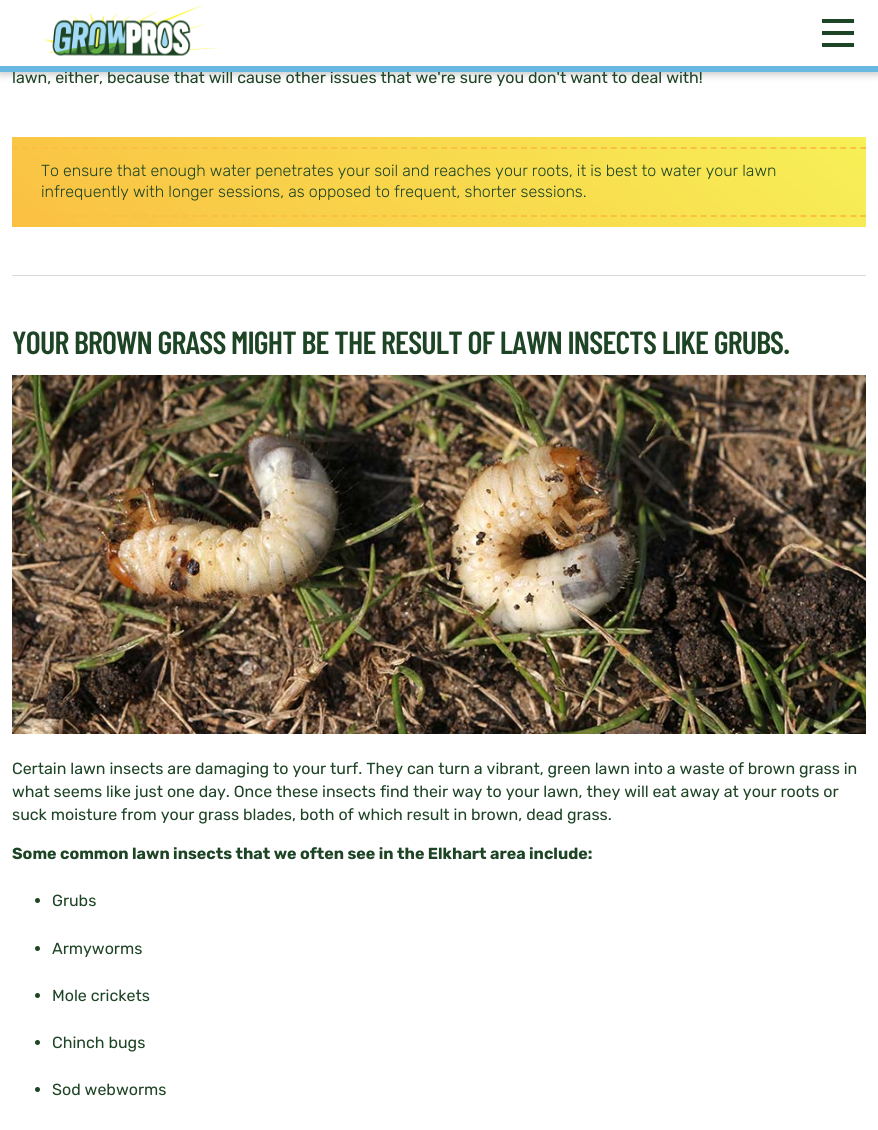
#include <cairo/cairo.h>
#include <math.h>
#include <stddef.h>


static void draw_spaced(cairo_t *cr, double x, double y, const char *s, double letter, double word) {
  cairo_move_to(cr, x, y);
  while (*s) {
    char ch[5] = {0};
    int n = 0;
    do ch[n++] = *s++; while ((*s & 0xC0) == 0x80);
    cairo_show_text(cr, ch);
    cairo_rel_move_to(cr, letter + word * (*ch == ' '), 0);
  }
}

static void rounded_rect(cairo_t *cr, double x, double y, double w, double h, double r) {
  cairo_new_sub_path(cr);
  cairo_arc(cr, x + w - r, y + h - r, r, 0, M_PI / 2);
  cairo_arc(cr, x + r, y + h - r, r, M_PI / 2, M_PI);
  cairo_arc(cr, x + r, y + r, r, M_PI, 1.5 * M_PI);
  cairo_arc(cr, x + w - r, y + r, r, 1.5 * M_PI, 2 * M_PI);
  cairo_close_path(cr);
}

static void draw_shadow(cairo_t *cr, double x, double y, double w, double h, double r, double blur, double alpha) {
  cairo_push_group_with_content(cr, CAIRO_CONTENT_ALPHA);
  cairo_set_operator(cr, CAIRO_OPERATOR_SOURCE);
  for (int i = 15; i >= -15 && fmin(w, h) + blur * i / 3 > 0; i -= 2) {
    double e = blur * i / 6;
    cairo_set_source_rgba(cr, 0, 0, 0, alpha * erfc((i - 1) / 8.5) / 2);
    rounded_rect(cr, x - e, y - e, w + 2 * e, h + 2 * e, fmax(0, fmin(r + e + blur * .6, fmin(w, h) / 2 + e)));
    cairo_fill(cr);
  }
  cairo_pattern_t *soft = cairo_pop_group(cr);
  cairo_mask(cr, soft);
  cairo_pattern_destroy(soft);
}

static void draw_image(cairo_t *cr, const char *path, double x, double y, double w, double h) {
  cairo_surface_t *image = cairo_image_surface_create_from_png(path);
  cairo_save(cr);
  cairo_set_source_surface(cr, image, x, y);
  cairo_rectangle(cr, x, y, w, h);
  cairo_fill(cr);
  cairo_restore(cr);
  cairo_surface_destroy(image);
}

static void draw(cairo_t *cr) {
  cairo_pattern_t *gradient;
  cairo_set_source_rgb(cr, 1, 1, 1);
  cairo_paint(cr);
  cairo_set_source_rgb(cr, 0, 0, 0);
  draw_shadow(cr, 0, 2, 878, 72, 0, 4, 0.24);
  cairo_set_source_rgb(cr, 1, 1, 1);
  cairo_rectangle(cr, 0, 0, 878, 66);
  cairo_fill(cr);
  draw_image(cr, "images/1.png", 44, 4, 180, 52);
  cairo_set_source_rgb(cr, 29 / 255.0, 68 / 255.0, 36 / 255.0);
  cairo_rectangle(cr, 822, 19, 32, 28);
  cairo_fill(cr);
  draw_image(cr, "images/2.png", 822, 17, 32, 32);
  gradient = cairo_pattern_create_linear(638, -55, 240, 419);
  cairo_pattern_add_color_stop_rgba(gradient, 0, 247 / 255.0, 240 / 255.0, 87 / 255.0, 1);
  cairo_pattern_add_color_stop_rgba(gradient, 1, 250 / 255.0, 192 / 255.0, 66 / 255.0, 1);
  cairo_set_source(cr, gradient);
  cairo_pattern_destroy(gradient);
  cairo_rectangle(cr, 12, 137, 854, 90);
  cairo_fill(cr);
  cairo_new_path(cr);
  cairo_move_to(cr, 12, 148);
  cairo_line_to(cr, 866, 148);
  cairo_set_source_rgb(cr, 250 / 255.0, 192 / 255.0, 66 / 255.0);
  cairo_set_dash(cr, (double[]){6, 3.98}, 2, 0);
  cairo_stroke(cr);
  cairo_new_path(cr);
  cairo_move_to(cr, 12, 216);
  cairo_line_to(cr, 866, 216);
  cairo_stroke(cr);
  cairo_set_source_rgb(cr, 218 / 255.0, 218 / 255.0, 218 / 255.0);
  cairo_rectangle(cr, 12, 275, 854, 1);
  cairo_fill(cr);
  draw_image(cr, "images/3.png", 12, 375, 854, 359);
  cairo_set_source_rgb(cr, 29 / 255.0, 68 / 255.0, 36 / 255.0);
  cairo_arc(cr, 37.5, 900.5, 2.5, 0, 2 * M_PI);
  cairo_fill(cr);
  cairo_arc(cr, 37.5, 948.5, 2.5, 0, 2 * M_PI);
  cairo_fill(cr);
  cairo_arc(cr, 37.5, 995.5, 2.5, 0, 2 * M_PI);
  cairo_fill(cr);
  cairo_arc(cr, 37.5, 1042.5, 2.5, 0, 2 * M_PI);
  cairo_fill(cr);
  cairo_arc(cr, 37.5, 1089.5, 2.5, 0, 2 * M_PI);
  cairo_fill(cr);
  cairo_select_font_face(cr, "Rubik", CAIRO_FONT_SLANT_NORMAL, CAIRO_FONT_WEIGHT_NORMAL);
  cairo_set_font_size(cr, 16);
  cairo_move_to(cr, 12, 83);
  cairo_show_text(cr, "lawn, either, because that will cause other issues that we're sure you don't want to deal with!");
  cairo_set_source_rgb(cr, 105 / 255.0, 184 / 255.0, 226 / 255.0);
  cairo_rectangle(cr, 0, 66, 878, 6);
  cairo_fill(cr);
  cairo_select_font_face(cr, "Rubik Light", CAIRO_FONT_SLANT_NORMAL, CAIRO_FONT_WEIGHT_NORMAL);
  cairo_set_source_rgb(cr, 29 / 255.0, 68 / 255.0, 36 / 255.0);
  cairo_move_to(cr, 41, 176);
  cairo_show_text(cr, "To ensure that enough water penetrates your soil and reaches your roots, it is best to water your lawn");
  cairo_move_to(cr, 41, 197);
  cairo_show_text(cr, "infrequently with longer sessions, as opposed to frequent, shorter sessions.");
  cairo_select_font_face(cr, "Barlow Condensed SemiBold", CAIRO_FONT_SLANT_NORMAL, CAIRO_FONT_WEIGHT_NORMAL);
  cairo_set_font_size(cr, 32);
  draw_spaced(cr, 12, 354, "YOUR BROWN GRASS MIGHT BE THE RESULT OF LAWN INSECTS LIKE GRUBS.", -0.8, 0);
  cairo_select_font_face(cr, "Rubik", CAIRO_FONT_SLANT_NORMAL, CAIRO_FONT_WEIGHT_NORMAL);
  cairo_set_font_size(cr, 16);
  cairo_move_to(cr, 12, 774);
  cairo_show_text(cr, "Certain lawn insects are damaging to your turf. They can turn a vibrant, green lawn into a waste of brown grass in");
  cairo_move_to(cr, 12, 797);
  cairo_show_text(cr, "what seems like just one day. Once these insects find their way to your lawn, they will eat away at your roots or");
  cairo_move_to(cr, 12, 820);
  cairo_show_text(cr, "suck moisture from your grass blades, both of which result in brown, dead grass.");
  cairo_select_font_face(cr, "Rubik", CAIRO_FONT_SLANT_NORMAL, CAIRO_FONT_WEIGHT_BOLD);
  cairo_move_to(cr, 12, 859);
  cairo_show_text(cr, "Some common lawn insects that we often see in the Elkhart area include:");
  cairo_select_font_face(cr, "Rubik", CAIRO_FONT_SLANT_NORMAL, CAIRO_FONT_WEIGHT_NORMAL);
  cairo_move_to(cr, 52, 906);
  cairo_show_text(cr, "Grubs");
  cairo_move_to(cr, 52, 954);
  cairo_show_text(cr, "Armyworms");
  cairo_move_to(cr, 52, 1001);
  cairo_show_text(cr, "Mole crickets");
  cairo_move_to(cr, 52, 1048);
  cairo_show_text(cr, "Chinch bugs");
  cairo_move_to(cr, 52, 1095);
  cairo_show_text(cr, "Sod webworms");
}

int main(void) {
  cairo_surface_t *surface = cairo_image_surface_create(CAIRO_FORMAT_RGB24, 878, 1130);
  cairo_t *cr = cairo_create(surface);
  cairo_font_options_t *options = cairo_font_options_create();
  cairo_font_options_set_hint_metrics(options, CAIRO_HINT_METRICS_OFF);
  cairo_font_options_set_hint_style(options, CAIRO_HINT_STYLE_NONE);
  cairo_set_font_options(cr, options);
  cairo_set_miter_limit(cr, 4);
  draw(cr);
  cairo_surface_write_to_png(surface, "out.png");
  cairo_font_options_destroy(options);
  cairo_destroy(cr);
  cairo_surface_destroy(surface);
  return 0;
}
